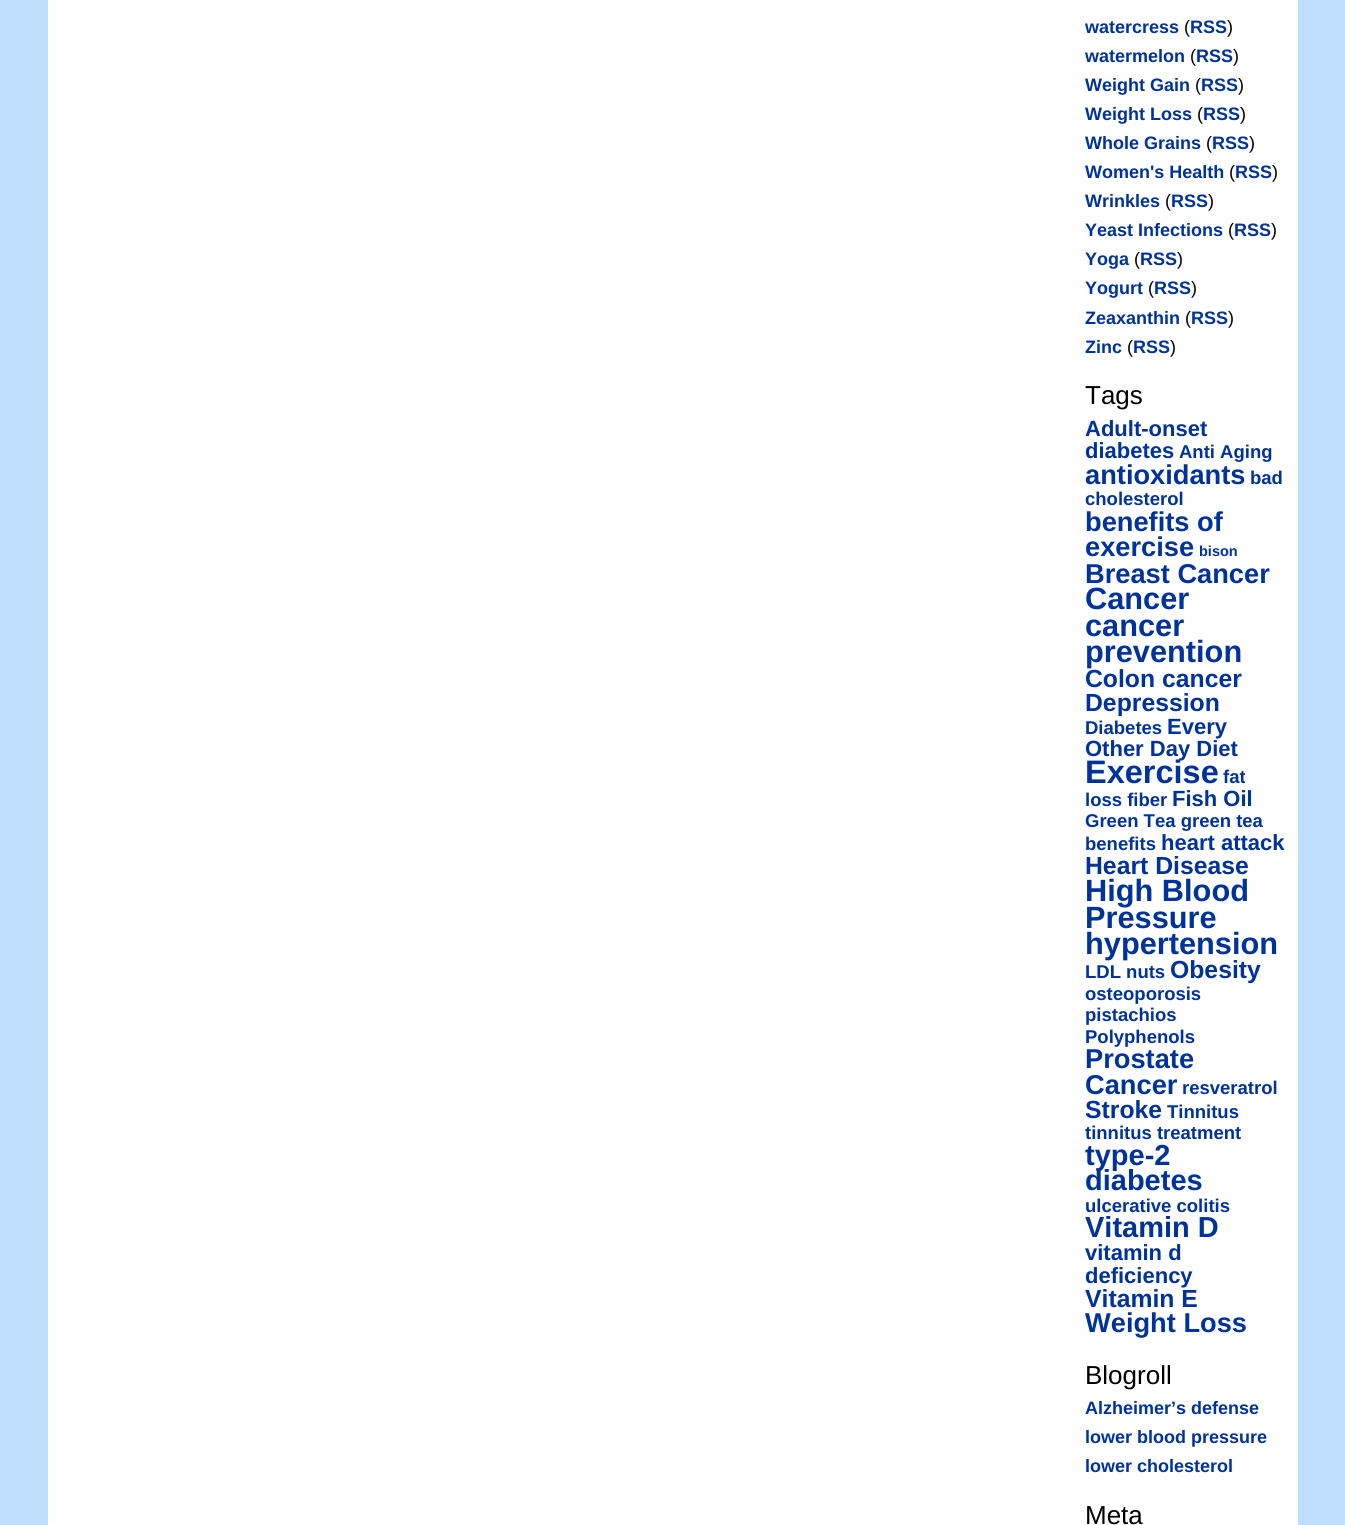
#include <cairo/cairo.h>
#include <math.h>
#include <stddef.h>


static void draw(cairo_t *cr) {
  cairo_set_source_rgb(cr, 191 / 255.0, 222 / 255.0, 251 / 255.0);
  cairo_paint(cr);
  cairo_set_source_rgb(cr, 1, 1, 1);
  cairo_rectangle(cr, 48, 0, 1250, 1525);
  cairo_fill(cr);
  cairo_select_font_face(cr, "Liberation Sans", CAIRO_FONT_SLANT_NORMAL, CAIRO_FONT_WEIGHT_BOLD);
  cairo_set_font_size(cr, 18);
  cairo_set_source_rgb(cr, 0, 51 / 255.0, 153 / 255.0);
  cairo_move_to(cr, 1085, 33);
  cairo_show_text(cr, "watercress");
  cairo_select_font_face(cr, "Liberation Sans", CAIRO_FONT_SLANT_NORMAL, CAIRO_FONT_WEIGHT_NORMAL);
  cairo_set_source_rgb(cr, 0, 0, 0);
  cairo_move_to(cr, 1184, 33);
  cairo_show_text(cr, "(");
  cairo_select_font_face(cr, "Liberation Sans", CAIRO_FONT_SLANT_NORMAL, CAIRO_FONT_WEIGHT_BOLD);
  cairo_set_source_rgb(cr, 0, 51 / 255.0, 153 / 255.0);
  cairo_move_to(cr, 1190, 33);
  cairo_show_text(cr, "RSS");
  cairo_select_font_face(cr, "Liberation Sans", CAIRO_FONT_SLANT_NORMAL, CAIRO_FONT_WEIGHT_NORMAL);
  cairo_set_source_rgb(cr, 0, 0, 0);
  cairo_move_to(cr, 1227, 33);
  cairo_show_text(cr, ")");
  cairo_select_font_face(cr, "Liberation Sans", CAIRO_FONT_SLANT_NORMAL, CAIRO_FONT_WEIGHT_BOLD);
  cairo_set_source_rgb(cr, 0, 51 / 255.0, 153 / 255.0);
  cairo_move_to(cr, 1085, 62);
  cairo_show_text(cr, "watermelon");
  cairo_select_font_face(cr, "Liberation Sans", CAIRO_FONT_SLANT_NORMAL, CAIRO_FONT_WEIGHT_NORMAL);
  cairo_set_source_rgb(cr, 0, 0, 0);
  cairo_move_to(cr, 1190, 62);
  cairo_show_text(cr, "(");
  cairo_select_font_face(cr, "Liberation Sans", CAIRO_FONT_SLANT_NORMAL, CAIRO_FONT_WEIGHT_BOLD);
  cairo_set_source_rgb(cr, 0, 51 / 255.0, 153 / 255.0);
  cairo_move_to(cr, 1196, 62);
  cairo_show_text(cr, "RSS");
  cairo_select_font_face(cr, "Liberation Sans", CAIRO_FONT_SLANT_NORMAL, CAIRO_FONT_WEIGHT_NORMAL);
  cairo_set_source_rgb(cr, 0, 0, 0);
  cairo_move_to(cr, 1233, 62);
  cairo_show_text(cr, ")");
  cairo_select_font_face(cr, "Liberation Sans", CAIRO_FONT_SLANT_NORMAL, CAIRO_FONT_WEIGHT_BOLD);
  cairo_set_source_rgb(cr, 0, 51 / 255.0, 153 / 255.0);
  cairo_move_to(cr, 1085, 91);
  cairo_show_text(cr, "Weight Gain");
  cairo_select_font_face(cr, "Liberation Sans", CAIRO_FONT_SLANT_NORMAL, CAIRO_FONT_WEIGHT_NORMAL);
  cairo_set_source_rgb(cr, 0, 0, 0);
  cairo_move_to(cr, 1195, 91);
  cairo_show_text(cr, "(");
  cairo_select_font_face(cr, "Liberation Sans", CAIRO_FONT_SLANT_NORMAL, CAIRO_FONT_WEIGHT_BOLD);
  cairo_set_source_rgb(cr, 0, 51 / 255.0, 153 / 255.0);
  cairo_move_to(cr, 1201, 91);
  cairo_show_text(cr, "RSS");
  cairo_select_font_face(cr, "Liberation Sans", CAIRO_FONT_SLANT_NORMAL, CAIRO_FONT_WEIGHT_NORMAL);
  cairo_set_source_rgb(cr, 0, 0, 0);
  cairo_move_to(cr, 1238, 91);
  cairo_show_text(cr, ")");
  cairo_select_font_face(cr, "Liberation Sans", CAIRO_FONT_SLANT_NORMAL, CAIRO_FONT_WEIGHT_BOLD);
  cairo_set_source_rgb(cr, 0, 51 / 255.0, 153 / 255.0);
  cairo_move_to(cr, 1085, 120);
  cairo_show_text(cr, "Weight Loss");
  cairo_select_font_face(cr, "Liberation Sans", CAIRO_FONT_SLANT_NORMAL, CAIRO_FONT_WEIGHT_NORMAL);
  cairo_set_source_rgb(cr, 0, 0, 0);
  cairo_move_to(cr, 1197, 120);
  cairo_show_text(cr, "(");
  cairo_select_font_face(cr, "Liberation Sans", CAIRO_FONT_SLANT_NORMAL, CAIRO_FONT_WEIGHT_BOLD);
  cairo_set_source_rgb(cr, 0, 51 / 255.0, 153 / 255.0);
  cairo_move_to(cr, 1203, 120);
  cairo_show_text(cr, "RSS");
  cairo_select_font_face(cr, "Liberation Sans", CAIRO_FONT_SLANT_NORMAL, CAIRO_FONT_WEIGHT_NORMAL);
  cairo_set_source_rgb(cr, 0, 0, 0);
  cairo_move_to(cr, 1240, 120);
  cairo_show_text(cr, ")");
  cairo_select_font_face(cr, "Liberation Sans", CAIRO_FONT_SLANT_NORMAL, CAIRO_FONT_WEIGHT_BOLD);
  cairo_set_source_rgb(cr, 0, 51 / 255.0, 153 / 255.0);
  cairo_move_to(cr, 1085, 149);
  cairo_show_text(cr, "Whole Grains");
  cairo_select_font_face(cr, "Liberation Sans", CAIRO_FONT_SLANT_NORMAL, CAIRO_FONT_WEIGHT_NORMAL);
  cairo_set_source_rgb(cr, 0, 0, 0);
  cairo_move_to(cr, 1206, 149);
  cairo_show_text(cr, "(");
  cairo_select_font_face(cr, "Liberation Sans", CAIRO_FONT_SLANT_NORMAL, CAIRO_FONT_WEIGHT_BOLD);
  cairo_set_source_rgb(cr, 0, 51 / 255.0, 153 / 255.0);
  cairo_move_to(cr, 1212, 149);
  cairo_show_text(cr, "RSS");
  cairo_select_font_face(cr, "Liberation Sans", CAIRO_FONT_SLANT_NORMAL, CAIRO_FONT_WEIGHT_NORMAL);
  cairo_set_source_rgb(cr, 0, 0, 0);
  cairo_move_to(cr, 1249, 149);
  cairo_show_text(cr, ")");
  cairo_select_font_face(cr, "Liberation Sans", CAIRO_FONT_SLANT_NORMAL, CAIRO_FONT_WEIGHT_BOLD);
  cairo_set_source_rgb(cr, 0, 51 / 255.0, 153 / 255.0);
  cairo_move_to(cr, 1085, 178);
  cairo_show_text(cr, "Women's Health");
  cairo_select_font_face(cr, "Liberation Sans", CAIRO_FONT_SLANT_NORMAL, CAIRO_FONT_WEIGHT_NORMAL);
  cairo_set_source_rgb(cr, 0, 0, 0);
  cairo_move_to(cr, 1229, 178);
  cairo_show_text(cr, "(");
  cairo_select_font_face(cr, "Liberation Sans", CAIRO_FONT_SLANT_NORMAL, CAIRO_FONT_WEIGHT_BOLD);
  cairo_set_source_rgb(cr, 0, 51 / 255.0, 153 / 255.0);
  cairo_move_to(cr, 1235, 178);
  cairo_show_text(cr, "RSS");
  cairo_select_font_face(cr, "Liberation Sans", CAIRO_FONT_SLANT_NORMAL, CAIRO_FONT_WEIGHT_NORMAL);
  cairo_set_source_rgb(cr, 0, 0, 0);
  cairo_move_to(cr, 1272, 178);
  cairo_show_text(cr, ")");
  cairo_select_font_face(cr, "Liberation Sans", CAIRO_FONT_SLANT_NORMAL, CAIRO_FONT_WEIGHT_BOLD);
  cairo_set_source_rgb(cr, 0, 51 / 255.0, 153 / 255.0);
  cairo_move_to(cr, 1085, 207);
  cairo_show_text(cr, "Wrinkles");
  cairo_select_font_face(cr, "Liberation Sans", CAIRO_FONT_SLANT_NORMAL, CAIRO_FONT_WEIGHT_NORMAL);
  cairo_set_source_rgb(cr, 0, 0, 0);
  cairo_move_to(cr, 1165, 207);
  cairo_show_text(cr, "(");
  cairo_select_font_face(cr, "Liberation Sans", CAIRO_FONT_SLANT_NORMAL, CAIRO_FONT_WEIGHT_BOLD);
  cairo_set_source_rgb(cr, 0, 51 / 255.0, 153 / 255.0);
  cairo_move_to(cr, 1171, 207);
  cairo_show_text(cr, "RSS");
  cairo_select_font_face(cr, "Liberation Sans", CAIRO_FONT_SLANT_NORMAL, CAIRO_FONT_WEIGHT_NORMAL);
  cairo_set_source_rgb(cr, 0, 0, 0);
  cairo_move_to(cr, 1208, 207);
  cairo_show_text(cr, ")");
  cairo_select_font_face(cr, "Liberation Sans", CAIRO_FONT_SLANT_NORMAL, CAIRO_FONT_WEIGHT_BOLD);
  cairo_set_source_rgb(cr, 0, 51 / 255.0, 153 / 255.0);
  cairo_move_to(cr, 1085, 236);
  cairo_show_text(cr, "Yeast Infections");
  cairo_select_font_face(cr, "Liberation Sans", CAIRO_FONT_SLANT_NORMAL, CAIRO_FONT_WEIGHT_NORMAL);
  cairo_set_source_rgb(cr, 0, 0, 0);
  cairo_move_to(cr, 1228, 236);
  cairo_show_text(cr, "(");
  cairo_select_font_face(cr, "Liberation Sans", CAIRO_FONT_SLANT_NORMAL, CAIRO_FONT_WEIGHT_BOLD);
  cairo_set_source_rgb(cr, 0, 51 / 255.0, 153 / 255.0);
  cairo_move_to(cr, 1234, 236);
  cairo_show_text(cr, "RSS");
  cairo_select_font_face(cr, "Liberation Sans", CAIRO_FONT_SLANT_NORMAL, CAIRO_FONT_WEIGHT_NORMAL);
  cairo_set_source_rgb(cr, 0, 0, 0);
  cairo_move_to(cr, 1271, 236);
  cairo_show_text(cr, ")");
  cairo_select_font_face(cr, "Liberation Sans", CAIRO_FONT_SLANT_NORMAL, CAIRO_FONT_WEIGHT_BOLD);
  cairo_set_source_rgb(cr, 0, 51 / 255.0, 153 / 255.0);
  cairo_move_to(cr, 1085, 265);
  cairo_show_text(cr, "Yoga");
  cairo_select_font_face(cr, "Liberation Sans", CAIRO_FONT_SLANT_NORMAL, CAIRO_FONT_WEIGHT_NORMAL);
  cairo_set_source_rgb(cr, 0, 0, 0);
  cairo_move_to(cr, 1134, 265);
  cairo_show_text(cr, "(");
  cairo_select_font_face(cr, "Liberation Sans", CAIRO_FONT_SLANT_NORMAL, CAIRO_FONT_WEIGHT_BOLD);
  cairo_set_source_rgb(cr, 0, 51 / 255.0, 153 / 255.0);
  cairo_move_to(cr, 1140, 265);
  cairo_show_text(cr, "RSS");
  cairo_select_font_face(cr, "Liberation Sans", CAIRO_FONT_SLANT_NORMAL, CAIRO_FONT_WEIGHT_NORMAL);
  cairo_set_source_rgb(cr, 0, 0, 0);
  cairo_move_to(cr, 1177, 265);
  cairo_show_text(cr, ")");
  cairo_select_font_face(cr, "Liberation Sans", CAIRO_FONT_SLANT_NORMAL, CAIRO_FONT_WEIGHT_BOLD);
  cairo_set_source_rgb(cr, 0, 51 / 255.0, 153 / 255.0);
  cairo_move_to(cr, 1085, 294);
  cairo_show_text(cr, "Yogurt");
  cairo_select_font_face(cr, "Liberation Sans", CAIRO_FONT_SLANT_NORMAL, CAIRO_FONT_WEIGHT_NORMAL);
  cairo_set_source_rgb(cr, 0, 0, 0);
  cairo_move_to(cr, 1148, 294);
  cairo_show_text(cr, "(");
  cairo_select_font_face(cr, "Liberation Sans", CAIRO_FONT_SLANT_NORMAL, CAIRO_FONT_WEIGHT_BOLD);
  cairo_set_source_rgb(cr, 0, 51 / 255.0, 153 / 255.0);
  cairo_move_to(cr, 1154, 294);
  cairo_show_text(cr, "RSS");
  cairo_select_font_face(cr, "Liberation Sans", CAIRO_FONT_SLANT_NORMAL, CAIRO_FONT_WEIGHT_NORMAL);
  cairo_set_source_rgb(cr, 0, 0, 0);
  cairo_move_to(cr, 1191, 294);
  cairo_show_text(cr, ")");
  cairo_select_font_face(cr, "Liberation Sans", CAIRO_FONT_SLANT_NORMAL, CAIRO_FONT_WEIGHT_BOLD);
  cairo_set_source_rgb(cr, 0, 51 / 255.0, 153 / 255.0);
  cairo_move_to(cr, 1085, 324);
  cairo_show_text(cr, "Zeaxanthin");
  cairo_select_font_face(cr, "Liberation Sans", CAIRO_FONT_SLANT_NORMAL, CAIRO_FONT_WEIGHT_NORMAL);
  cairo_set_source_rgb(cr, 0, 0, 0);
  cairo_move_to(cr, 1185, 324);
  cairo_show_text(cr, "(");
  cairo_select_font_face(cr, "Liberation Sans", CAIRO_FONT_SLANT_NORMAL, CAIRO_FONT_WEIGHT_BOLD);
  cairo_set_source_rgb(cr, 0, 51 / 255.0, 153 / 255.0);
  cairo_move_to(cr, 1191, 324);
  cairo_show_text(cr, "RSS");
  cairo_select_font_face(cr, "Liberation Sans", CAIRO_FONT_SLANT_NORMAL, CAIRO_FONT_WEIGHT_NORMAL);
  cairo_set_source_rgb(cr, 0, 0, 0);
  cairo_move_to(cr, 1228, 324);
  cairo_show_text(cr, ")");
  cairo_select_font_face(cr, "Liberation Sans", CAIRO_FONT_SLANT_NORMAL, CAIRO_FONT_WEIGHT_BOLD);
  cairo_set_source_rgb(cr, 0, 51 / 255.0, 153 / 255.0);
  cairo_move_to(cr, 1085, 353);
  cairo_show_text(cr, "Zinc");
  cairo_select_font_face(cr, "Liberation Sans", CAIRO_FONT_SLANT_NORMAL, CAIRO_FONT_WEIGHT_NORMAL);
  cairo_set_source_rgb(cr, 0, 0, 0);
  cairo_move_to(cr, 1127, 353);
  cairo_show_text(cr, "(");
  cairo_select_font_face(cr, "Liberation Sans", CAIRO_FONT_SLANT_NORMAL, CAIRO_FONT_WEIGHT_BOLD);
  cairo_set_source_rgb(cr, 0, 51 / 255.0, 153 / 255.0);
  cairo_move_to(cr, 1133, 353);
  cairo_show_text(cr, "RSS");
  cairo_select_font_face(cr, "Liberation Sans", CAIRO_FONT_SLANT_NORMAL, CAIRO_FONT_WEIGHT_NORMAL);
  cairo_set_source_rgb(cr, 0, 0, 0);
  cairo_move_to(cr, 1170, 353);
  cairo_show_text(cr, ")");
  cairo_set_font_size(cr, 26);
  cairo_move_to(cr, 1085, 404);
  cairo_show_text(cr, "Tags");
  cairo_select_font_face(cr, "Liberation Sans", CAIRO_FONT_SLANT_NORMAL, CAIRO_FONT_WEIGHT_BOLD);
  cairo_set_font_size(cr, 22);
  cairo_set_source_rgb(cr, 0, 51 / 255.0, 153 / 255.0);
  cairo_move_to(cr, 1085, 436);
  cairo_show_text(cr, "Adult-onset");
  cairo_move_to(cr, 1085, 458);
  cairo_show_text(cr, "diabetes");
  cairo_set_font_size(cr, 18.5);
  cairo_move_to(cr, 1179, 458);
  cairo_show_text(cr, "Anti Aging");
  cairo_set_font_size(cr, 27.25);
  cairo_move_to(cr, 1085, 484);
  cairo_show_text(cr, "antioxidants");
  cairo_set_font_size(cr, 18.5);
  cairo_move_to(cr, 1250, 484);
  cairo_show_text(cr, "bad");
  cairo_move_to(cr, 1085, 505);
  cairo_show_text(cr, "cholesterol");
  cairo_set_font_size(cr, 27.25);
  cairo_move_to(cr, 1085, 531);
  cairo_show_text(cr, "benefits of");
  cairo_move_to(cr, 1085, 556);
  cairo_show_text(cr, "exercise");
  cairo_set_font_size(cr, 14.5);
  cairo_move_to(cr, 1199, 556);
  cairo_show_text(cr, "bison");
  cairo_set_font_size(cr, 27.25);
  cairo_move_to(cr, 1085, 583);
  cairo_show_text(cr, "Breast Cancer");
  cairo_set_font_size(cr, 30.75);
  cairo_move_to(cr, 1085, 609);
  cairo_show_text(cr, "Cancer");
  cairo_move_to(cr, 1085, 636);
  cairo_show_text(cr, "cancer");
  cairo_move_to(cr, 1085, 662);
  cairo_show_text(cr, "prevention");
  cairo_set_font_size(cr, 24.75);
  cairo_move_to(cr, 1085, 687);
  cairo_show_text(cr, "Colon cancer");
  cairo_move_to(cr, 1085, 711);
  cairo_show_text(cr, "Depression");
  cairo_set_font_size(cr, 18.5);
  cairo_move_to(cr, 1085, 734);
  cairo_show_text(cr, "Diabetes");
  cairo_set_font_size(cr, 22);
  cairo_move_to(cr, 1167, 734);
  cairo_show_text(cr, "Every");
  cairo_move_to(cr, 1085, 756);
  cairo_show_text(cr, "Other Day Diet");
  cairo_set_font_size(cr, 32.5);
  cairo_move_to(cr, 1085, 783);
  cairo_show_text(cr, "Exercise");
  cairo_set_font_size(cr, 18.5);
  cairo_move_to(cr, 1223, 783);
  cairo_show_text(cr, "fat");
  cairo_move_to(cr, 1085, 806);
  cairo_show_text(cr, "loss fiber");
  cairo_set_font_size(cr, 22);
  cairo_move_to(cr, 1172, 806);
  cairo_show_text(cr, "Fish Oil");
  cairo_set_font_size(cr, 18.5);
  cairo_move_to(cr, 1085, 827);
  cairo_show_text(cr, "Green Tea green tea");
  cairo_move_to(cr, 1085, 850);
  cairo_show_text(cr, "benefits");
  cairo_set_font_size(cr, 22);
  cairo_move_to(cr, 1161, 850);
  cairo_show_text(cr, "heart attack");
  cairo_set_font_size(cr, 24.75);
  cairo_move_to(cr, 1085, 874);
  cairo_show_text(cr, "Heart Disease");
  cairo_set_font_size(cr, 30.75);
  cairo_move_to(cr, 1085, 901);
  cairo_show_text(cr, "High Blood");
  cairo_move_to(cr, 1085, 928);
  cairo_show_text(cr, "Pressure");
  cairo_move_to(cr, 1085, 954);
  cairo_show_text(cr, "hypertension");
  cairo_set_font_size(cr, 18.5);
  cairo_move_to(cr, 1085, 978);
  cairo_show_text(cr, "LDL nuts");
  cairo_set_font_size(cr, 24.75);
  cairo_move_to(cr, 1170, 978);
  cairo_show_text(cr, "Obesity");
  cairo_set_font_size(cr, 18.5);
  cairo_move_to(cr, 1085, 1000);
  cairo_show_text(cr, "osteoporosis");
  cairo_move_to(cr, 1085, 1021);
  cairo_show_text(cr, "pistachios");
  cairo_move_to(cr, 1085, 1043);
  cairo_show_text(cr, "Polyphenols");
  cairo_set_font_size(cr, 27.25);
  cairo_move_to(cr, 1085, 1068);
  cairo_show_text(cr, "Prostate");
  cairo_move_to(cr, 1085, 1094);
  cairo_show_text(cr, "Cancer");
  cairo_set_font_size(cr, 18.5);
  cairo_move_to(cr, 1182, 1094);
  cairo_show_text(cr, "resveratrol");
  cairo_set_font_size(cr, 24.75);
  cairo_move_to(cr, 1085, 1118);
  cairo_show_text(cr, "Stroke");
  cairo_set_font_size(cr, 18.5);
  cairo_move_to(cr, 1167, 1118);
  cairo_show_text(cr, "Tinnitus");
  cairo_move_to(cr, 1085, 1139);
  cairo_show_text(cr, "tinnitus treatment");
  cairo_set_font_size(cr, 29);
  cairo_move_to(cr, 1085, 1165);
  cairo_show_text(cr, "type-2");
  cairo_move_to(cr, 1085, 1190);
  cairo_show_text(cr, "diabetes");
  cairo_set_font_size(cr, 18.5);
  cairo_move_to(cr, 1085, 1212);
  cairo_show_text(cr, "ulcerative colitis");
  cairo_set_font_size(cr, 29);
  cairo_move_to(cr, 1085, 1237);
  cairo_show_text(cr, "Vitamin D");
  cairo_set_font_size(cr, 22);
  cairo_move_to(cr, 1085, 1260);
  cairo_show_text(cr, "vitamin d");
  cairo_move_to(cr, 1085, 1283);
  cairo_show_text(cr, "deficiency");
  cairo_set_font_size(cr, 24.75);
  cairo_move_to(cr, 1085, 1307);
  cairo_show_text(cr, "Vitamin E");
  cairo_set_font_size(cr, 27.25);
  cairo_move_to(cr, 1085, 1332);
  cairo_show_text(cr, "Weight Loss");
  cairo_select_font_face(cr, "Liberation Sans", CAIRO_FONT_SLANT_NORMAL, CAIRO_FONT_WEIGHT_NORMAL);
  cairo_set_font_size(cr, 26);
  cairo_set_source_rgb(cr, 0, 0, 0);
  cairo_move_to(cr, 1085, 1384);
  cairo_show_text(cr, "Blogroll");
  cairo_select_font_face(cr, "Liberation Sans", CAIRO_FONT_SLANT_NORMAL, CAIRO_FONT_WEIGHT_BOLD);
  cairo_set_font_size(cr, 18);
  cairo_set_source_rgb(cr, 0, 51 / 255.0, 153 / 255.0);
  cairo_move_to(cr, 1085, 1414);
  cairo_show_text(cr, "Alzheimer’s defense");
  cairo_move_to(cr, 1085, 1443);
  cairo_show_text(cr, "lower blood pressure");
  cairo_move_to(cr, 1085, 1472);
  cairo_show_text(cr, "lower cholesterol");
  cairo_select_font_face(cr, "Liberation Sans", CAIRO_FONT_SLANT_NORMAL, CAIRO_FONT_WEIGHT_NORMAL);
  cairo_set_font_size(cr, 26);
  cairo_set_source_rgb(cr, 0, 0, 0);
  cairo_move_to(cr, 1085, 1524);
  cairo_show_text(cr, "Meta");
}

int main(void) {
  cairo_surface_t *surface = cairo_image_surface_create(CAIRO_FORMAT_RGB24, 1345, 1525);
  cairo_t *cr = cairo_create(surface);
  cairo_font_options_t *options = cairo_font_options_create();
  cairo_font_options_set_hint_metrics(options, CAIRO_HINT_METRICS_OFF);
  cairo_font_options_set_hint_style(options, CAIRO_HINT_STYLE_NONE);
  cairo_set_font_options(cr, options);
  cairo_set_miter_limit(cr, 4);
  draw(cr);
  cairo_surface_write_to_png(surface, "out.png");
  cairo_font_options_destroy(options);
  cairo_destroy(cr);
  cairo_surface_destroy(surface);
  return 0;
}
